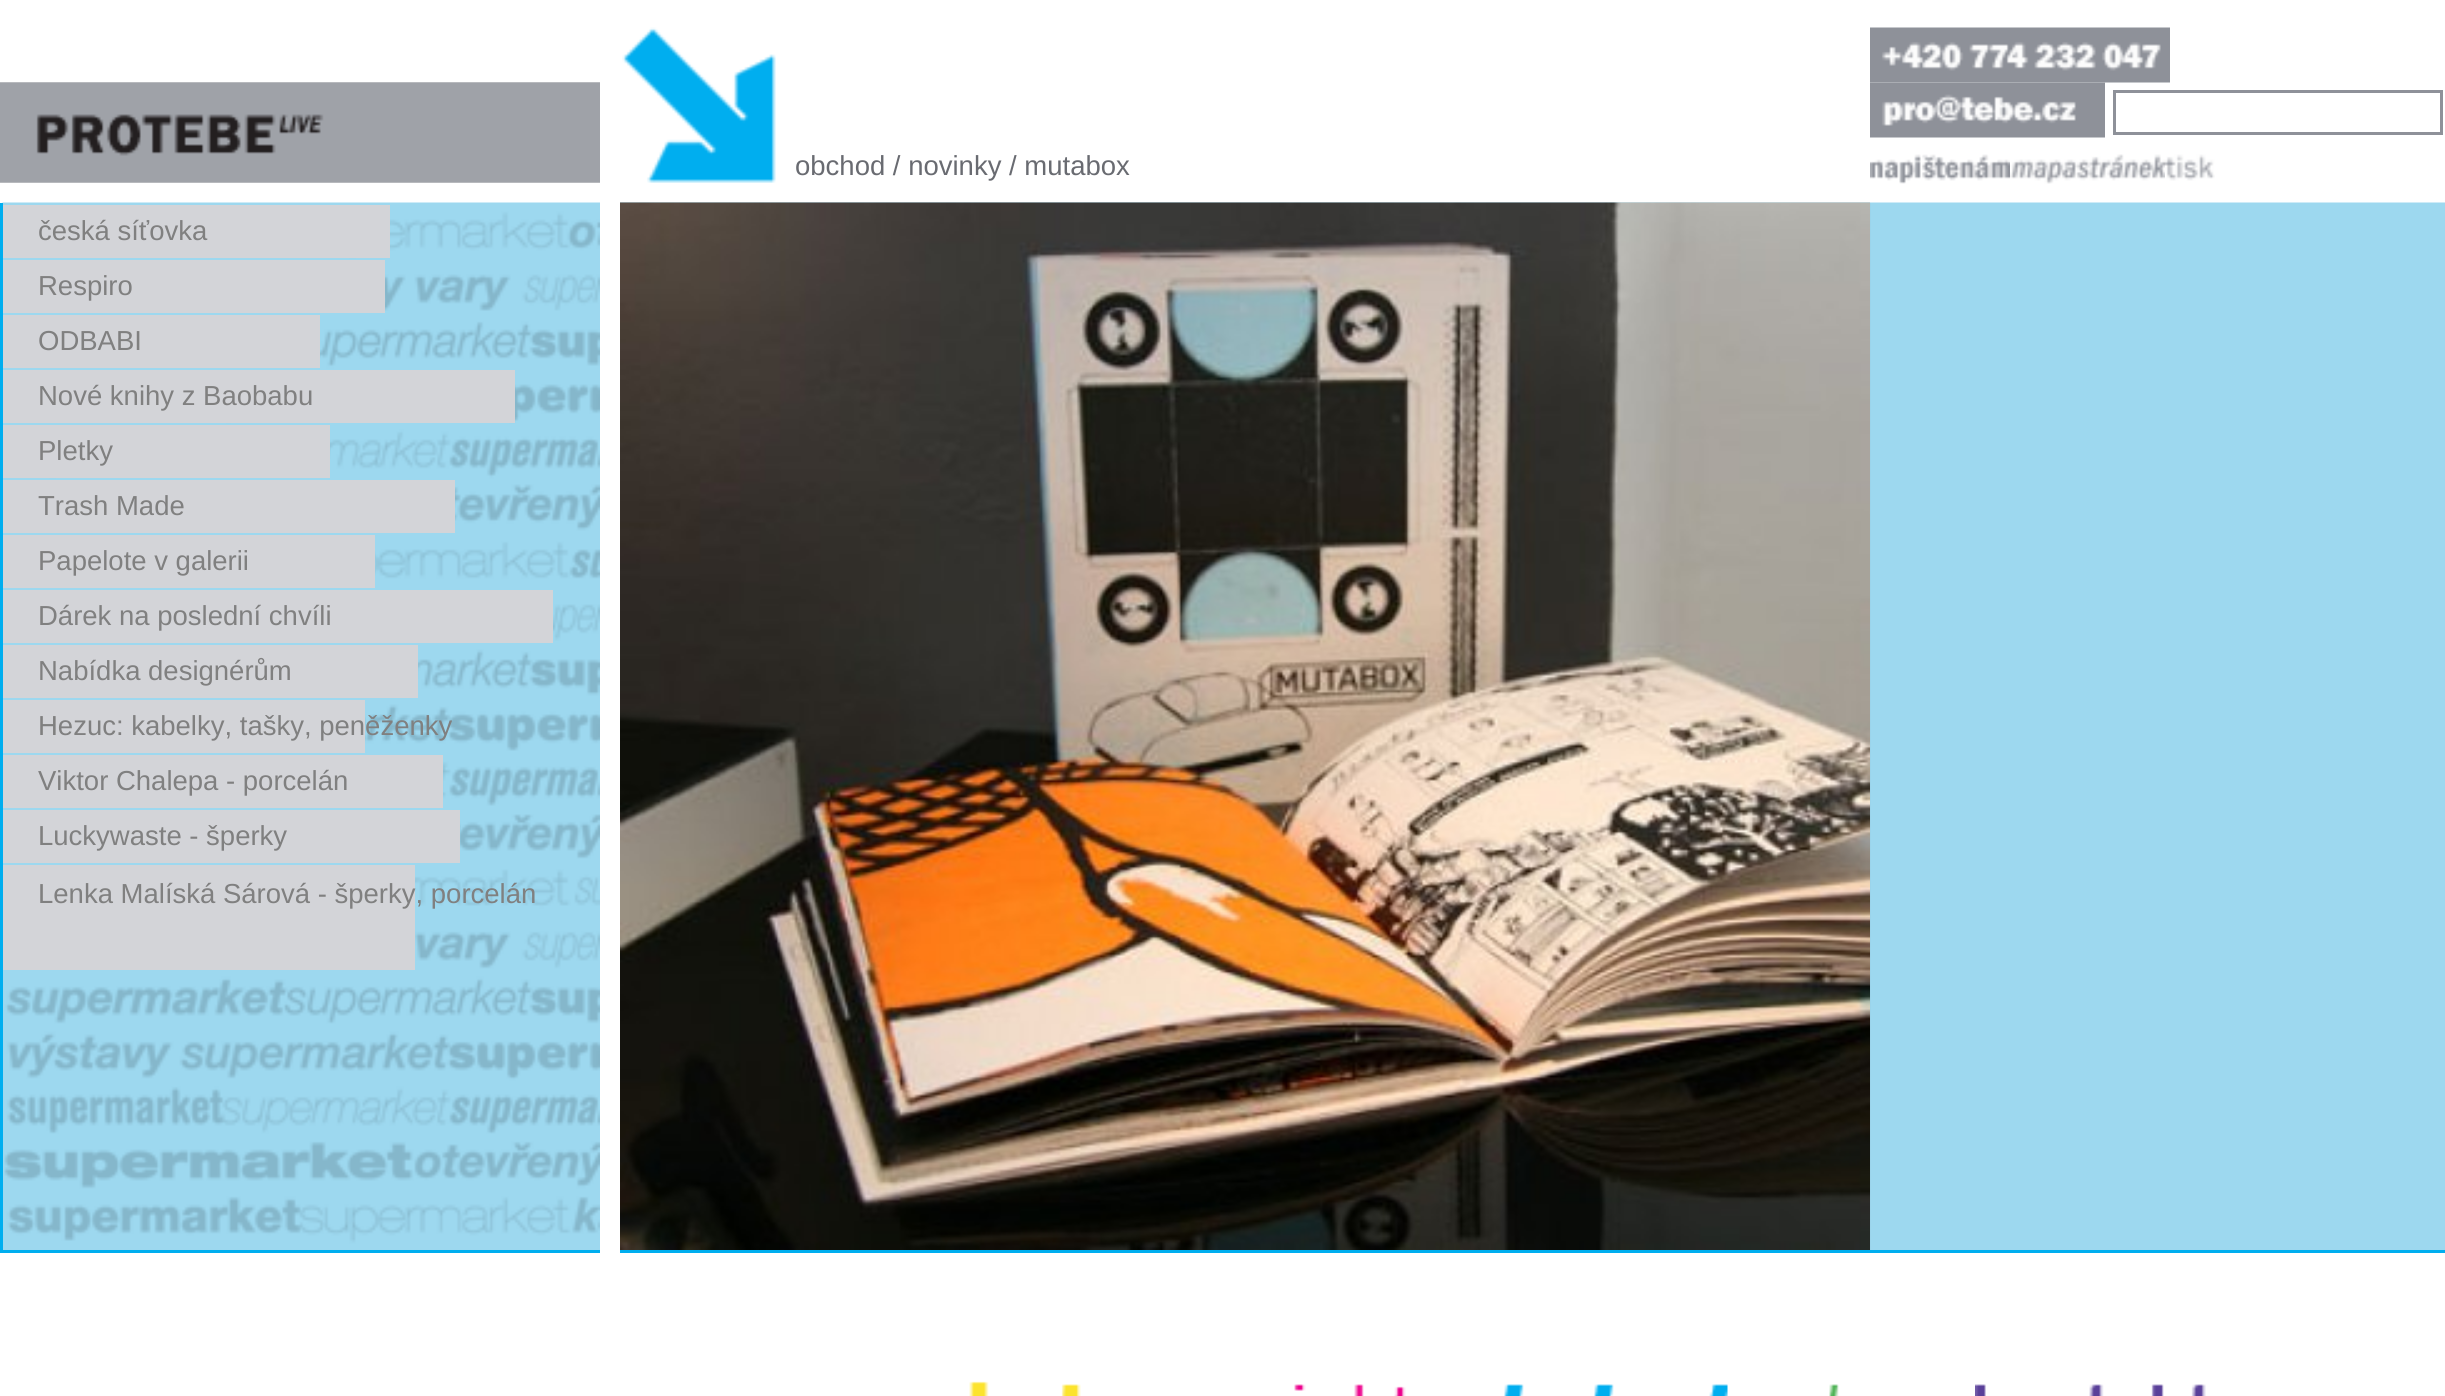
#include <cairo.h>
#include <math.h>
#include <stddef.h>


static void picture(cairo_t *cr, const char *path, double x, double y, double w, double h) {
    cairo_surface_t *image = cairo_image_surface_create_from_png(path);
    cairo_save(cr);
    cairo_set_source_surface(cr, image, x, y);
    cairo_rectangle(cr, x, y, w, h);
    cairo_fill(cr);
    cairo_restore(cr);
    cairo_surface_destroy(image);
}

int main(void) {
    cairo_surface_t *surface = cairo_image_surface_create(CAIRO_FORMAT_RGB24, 2445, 1396);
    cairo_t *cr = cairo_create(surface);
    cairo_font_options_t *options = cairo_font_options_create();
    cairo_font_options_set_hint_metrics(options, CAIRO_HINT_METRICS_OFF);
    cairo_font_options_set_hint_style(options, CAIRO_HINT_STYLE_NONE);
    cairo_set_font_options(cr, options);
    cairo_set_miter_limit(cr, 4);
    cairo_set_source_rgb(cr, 1, 1, 1);
    cairo_paint(cr);
    picture(cr, "img1.png", 622, 27, 154, 156);
    cairo_select_font_face(cr, "Liberation Sans", CAIRO_FONT_SLANT_NORMAL, CAIRO_FONT_WEIGHT_NORMAL);
    cairo_set_font_size(cr, 27.5);
    cairo_set_source_rgb(cr, 0.412, 0.42, 0.443);
    cairo_move_to(cr, 795, 175);
    cairo_show_text(cr, "obchod / novinky / mutabox");
    picture(cr, "img2.png", 1870, 27, 300, 56);
    picture(cr, "img3.png", 1870, 82, 235, 56);
    cairo_rectangle(cr, 2114.5, 91.5, 327, 42);
    cairo_set_source_rgb(cr, 0.557, 0.569, 0.6);
    cairo_set_line_width(cr, 3);
    cairo_stroke(cr);
    picture(cr, "img4.png", 1870, 154, 140, 30);
    picture(cr, "img5.png", 2010, 154, 155, 30);
    picture(cr, "img6.png", 2165, 154, 50, 27);
    picture(cr, "img7.png", 620, 202, 1825, 1048);
    cairo_set_source_rgb(cr, 0, 0.682, 0.937);
    cairo_rectangle(cr, 620, 1250, 1825, 3);
    cairo_fill(cr);
    picture(cr, "img8.png", 620, 202, 1250, 1048);
    picture(cr, "img9.png", 969, 1381, 112, 15);
    picture(cr, "img10.png", 1294, 1384, 112, 12);
    picture(cr, "img11.png", 1504, 1384, 224, 12);
    picture(cr, "img12.png", 1829, 1384, 10, 12);
    picture(cr, "img13.png", 1975, 1384, 231, 12);
    picture(cr, "img14.png", 0, 82, 600, 101);
    picture(cr, "img15.png", 0, 82, 600, 101);
    picture(cr, "img16.png", 2, 202, 598, 1048);
    cairo_rectangle(cr, 0, 1250, 600, 3);
    cairo_fill(cr);
    cairo_rectangle(cr, 0, 203, 3, 1050);
    cairo_fill(cr);
    cairo_set_source_rgb(cr, 0.827, 0.831, 0.847);
    cairo_rectangle(cr, 3, 205, 387, 53);
    cairo_fill(cr);
    cairo_set_source_rgb(cr, 0.502, 0.502, 0.502);
    cairo_move_to(cr, 38, 240);
    cairo_show_text(cr, "česká síťovka");
    cairo_set_source_rgb(cr, 0.827, 0.831, 0.847);
    cairo_rectangle(cr, 3, 260, 382, 53);
    cairo_fill(cr);
    cairo_set_source_rgb(cr, 0.502, 0.502, 0.502);
    cairo_move_to(cr, 38, 295);
    cairo_show_text(cr, "Respiro");
    cairo_set_source_rgb(cr, 0.827, 0.831, 0.847);
    cairo_rectangle(cr, 3, 315, 317, 53);
    cairo_fill(cr);
    cairo_set_source_rgb(cr, 0.502, 0.502, 0.502);
    cairo_move_to(cr, 38, 350);
    cairo_show_text(cr, "ODBABI");
    cairo_set_source_rgb(cr, 0.827, 0.831, 0.847);
    cairo_rectangle(cr, 3, 370, 512, 53);
    cairo_fill(cr);
    cairo_set_source_rgb(cr, 0.502, 0.502, 0.502);
    cairo_move_to(cr, 38, 405);
    cairo_show_text(cr, "Nové knihy z Baobabu");
    cairo_set_source_rgb(cr, 0.827, 0.831, 0.847);
    cairo_rectangle(cr, 3, 425, 327, 53);
    cairo_fill(cr);
    cairo_set_source_rgb(cr, 0.502, 0.502, 0.502);
    cairo_move_to(cr, 38, 460);
    cairo_show_text(cr, "Pletky");
    cairo_set_source_rgb(cr, 0.827, 0.831, 0.847);
    cairo_rectangle(cr, 3, 480, 452, 53);
    cairo_fill(cr);
    cairo_set_source_rgb(cr, 0.502, 0.502, 0.502);
    cairo_move_to(cr, 38, 515);
    cairo_show_text(cr, "Trash Made");
    cairo_set_source_rgb(cr, 0.827, 0.831, 0.847);
    cairo_rectangle(cr, 3, 535, 372, 53);
    cairo_fill(cr);
    cairo_set_source_rgb(cr, 0.502, 0.502, 0.502);
    cairo_move_to(cr, 38, 570);
    cairo_show_text(cr, "Papelote v galerii");
    cairo_set_source_rgb(cr, 0.827, 0.831, 0.847);
    cairo_rectangle(cr, 3, 590, 550, 53);
    cairo_fill(cr);
    cairo_set_source_rgb(cr, 0.502, 0.502, 0.502);
    cairo_move_to(cr, 38, 625);
    cairo_show_text(cr, "Dárek na poslední chvíli");
    cairo_set_source_rgb(cr, 0.827, 0.831, 0.847);
    cairo_rectangle(cr, 3, 645, 415, 53);
    cairo_fill(cr);
    cairo_set_source_rgb(cr, 0.502, 0.502, 0.502);
    cairo_move_to(cr, 38, 680);
    cairo_show_text(cr, "Nabídka designérům");
    cairo_set_source_rgb(cr, 0.827, 0.831, 0.847);
    cairo_rectangle(cr, 3, 700, 362, 53);
    cairo_fill(cr);
    cairo_set_source_rgb(cr, 0.502, 0.502, 0.502);
    cairo_move_to(cr, 38, 735);
    cairo_show_text(cr, "Hezuc: kabelky, tašky, peněženky");
    cairo_set_source_rgb(cr, 0.827, 0.831, 0.847);
    cairo_rectangle(cr, 3, 755, 440, 53);
    cairo_fill(cr);
    cairo_set_source_rgb(cr, 0.502, 0.502, 0.502);
    cairo_move_to(cr, 38, 790);
    cairo_show_text(cr, "Viktor Chalepa - porcelán");
    cairo_set_source_rgb(cr, 0.827, 0.831, 0.847);
    cairo_rectangle(cr, 3, 810, 457, 53);
    cairo_fill(cr);
    cairo_set_source_rgb(cr, 0.502, 0.502, 0.502);
    cairo_move_to(cr, 38, 845);
    cairo_show_text(cr, "Luckywaste - šperky");
    cairo_set_source_rgb(cr, 0.827, 0.831, 0.847);
    cairo_rectangle(cr, 3, 865, 412, 105);
    cairo_fill(cr);
    cairo_set_source_rgb(cr, 0.502, 0.502, 0.502);
    cairo_move_to(cr, 38, 903);
    cairo_show_text(cr, "Lenka Malíská Sárová - šperky, porcelán");
    cairo_surface_write_to_png(surface, "page.png");
    cairo_font_options_destroy(options);
    cairo_destroy(cr);
    cairo_surface_destroy(surface);
    return 0;
}
